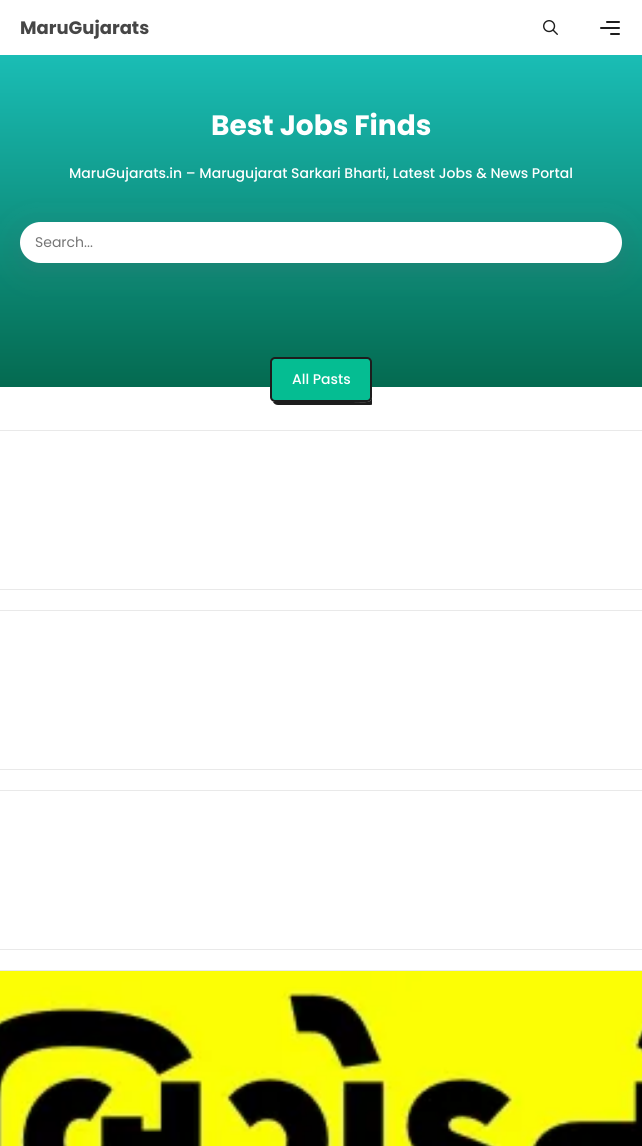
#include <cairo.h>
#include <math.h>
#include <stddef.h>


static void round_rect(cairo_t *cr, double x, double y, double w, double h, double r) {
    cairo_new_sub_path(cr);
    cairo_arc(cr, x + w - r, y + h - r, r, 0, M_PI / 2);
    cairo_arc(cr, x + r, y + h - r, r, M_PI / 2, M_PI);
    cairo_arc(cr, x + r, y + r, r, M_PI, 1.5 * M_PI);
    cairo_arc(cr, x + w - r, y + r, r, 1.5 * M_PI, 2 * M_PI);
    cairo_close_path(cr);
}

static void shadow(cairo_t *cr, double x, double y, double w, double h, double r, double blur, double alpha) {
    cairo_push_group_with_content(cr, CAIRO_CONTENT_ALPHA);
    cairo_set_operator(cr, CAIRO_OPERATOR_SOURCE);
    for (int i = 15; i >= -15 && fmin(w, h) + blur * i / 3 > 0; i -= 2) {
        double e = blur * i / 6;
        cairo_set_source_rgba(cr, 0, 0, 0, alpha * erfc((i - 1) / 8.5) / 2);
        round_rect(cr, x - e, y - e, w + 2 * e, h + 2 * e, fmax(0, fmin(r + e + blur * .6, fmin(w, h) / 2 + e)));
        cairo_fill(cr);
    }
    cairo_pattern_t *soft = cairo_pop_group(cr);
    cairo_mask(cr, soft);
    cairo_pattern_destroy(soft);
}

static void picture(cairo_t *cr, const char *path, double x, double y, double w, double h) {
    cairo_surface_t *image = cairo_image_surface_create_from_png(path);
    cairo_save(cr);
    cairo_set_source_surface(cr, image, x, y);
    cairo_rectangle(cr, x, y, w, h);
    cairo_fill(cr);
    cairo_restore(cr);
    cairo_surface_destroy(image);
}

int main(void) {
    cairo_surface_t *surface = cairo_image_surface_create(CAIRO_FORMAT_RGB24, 642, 1146);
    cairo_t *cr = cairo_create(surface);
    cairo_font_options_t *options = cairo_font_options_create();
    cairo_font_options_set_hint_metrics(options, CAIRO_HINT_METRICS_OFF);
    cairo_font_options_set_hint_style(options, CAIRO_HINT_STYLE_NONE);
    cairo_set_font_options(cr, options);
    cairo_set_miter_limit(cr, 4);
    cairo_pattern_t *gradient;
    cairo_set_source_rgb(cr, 1, 1, 1);
    cairo_paint(cr);
    cairo_select_font_face(cr, "Poppins", CAIRO_FONT_SLANT_NORMAL, CAIRO_FONT_WEIGHT_BOLD);
    cairo_set_font_size(cr, 18);
    cairo_set_source_rgb(cr, 0.275, 0.275, 0.275);
    cairo_move_to(cr, 20, 34);
    cairo_show_text(cr, "MaruGujarats");
    picture(cr, "img1.png", 543, 20, 15, 15);
    picture(cr, "img2.png", 600, 21, 20, 14);
    gradient = cairo_pattern_create_linear(321, 55, 321, 387);
    cairo_pattern_add_color_stop_rgba(gradient, 0, 0.102, 0.741, 0.71, 1);
    cairo_pattern_add_color_stop_rgba(gradient, 1, 0.016, 0.416, 0.314, 1);
    cairo_set_source(cr, gradient);
    cairo_pattern_destroy(gradient);
    cairo_rectangle(cr, 0, 55, 642, 332);
    cairo_fill(cr);
    cairo_set_font_size(cr, 28);
    cairo_set_source_rgb(cr, 1, 1, 1);
    cairo_move_to(cr, 211, 135);
    cairo_show_text(cr, "Best Jobs Finds");
    cairo_select_font_face(cr, "Poppins Medium", CAIRO_FONT_SLANT_NORMAL, CAIRO_FONT_WEIGHT_NORMAL);
    cairo_set_font_size(cr, 14);
    cairo_move_to(cr, 69, 178);
    cairo_show_text(cr, "MaruGujarats.in – Marugujarat Sarkari Bharti, Latest Jobs & News Portal");
    cairo_set_source_rgb(cr, 0.392, 0.392, 0.435);
    shadow(cr, 20, 229, 602, 41, 20.5, 14.5, 0.2);
    cairo_set_source_rgb(cr, 1, 1, 1);
    round_rect(cr, 20, 222, 602, 41, 20.5);
    cairo_fill(cr);
    cairo_select_font_face(cr, "Poppins", CAIRO_FONT_SLANT_NORMAL, CAIRO_FONT_WEIGHT_NORMAL);
    cairo_set_source_rgb(cr, 0.459, 0.459, 0.459);
    cairo_move_to(cr, 35, 247);
    cairo_show_text(cr, "Search...");
    cairo_save(cr);
    cairo_rectangle(cr, 270, 357, 102, 53);
    cairo_clip(cr);
    cairo_set_source_rgb(cr, 0.114, 0.114, 0.114);
    cairo_new_path(cr);
    cairo_move_to(cr, 273, 402);
    cairo_curve_to(cr, 274, 404, 276, 405, 278, 405);
    cairo_line_to(cr, 370, 405);
    cairo_curve_to(cr, 373, 405, 375, 403, 375, 400);
    cairo_line_to(cr, 375, 365);
    cairo_curve_to(cr, 375, 363, 374, 361, 372, 360);
    cairo_line_to(cr, 372, 385);
    cairo_curve_to(cr, 372, 405, 373, 402, 352, 402);
    cairo_close_path(cr);
    cairo_fill(cr);
    cairo_restore(cr);
    cairo_set_source_rgb(cr, 0.02, 0.741, 0.573);
    round_rect(cr, 271, 358, 100, 43, 4);
    cairo_fill_preserve(cr);
    cairo_set_source_rgb(cr, 0.114, 0.114, 0.114);
    cairo_stroke(cr);
    cairo_select_font_face(cr, "Poppins Medium", CAIRO_FONT_SLANT_NORMAL, CAIRO_FONT_WEIGHT_NORMAL);
    cairo_set_source_rgb(cr, 1, 1, 1);
    cairo_move_to(cr, 292, 384);
    cairo_show_text(cr, "All Pasts");
    cairo_rectangle(cr, -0.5, 430.5, 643, 159);
    cairo_set_source_rgb(cr, 0.914, 0.914, 0.914);
    cairo_set_line_width(cr, 1);
    cairo_stroke(cr);
    cairo_rectangle(cr, -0.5, 610.5, 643, 159);
    cairo_stroke(cr);
    cairo_rectangle(cr, -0.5, 790.5, 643, 159);
    cairo_stroke(cr);
    cairo_rectangle(cr, -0.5, 970.5, 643, 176);
    cairo_stroke(cr);
    picture(cr, "img3.png", 0, 971, 642, 175);
    cairo_surface_write_to_png(surface, "page.png");
    cairo_font_options_destroy(options);
    cairo_destroy(cr);
    cairo_surface_destroy(surface);
    return 0;
}
